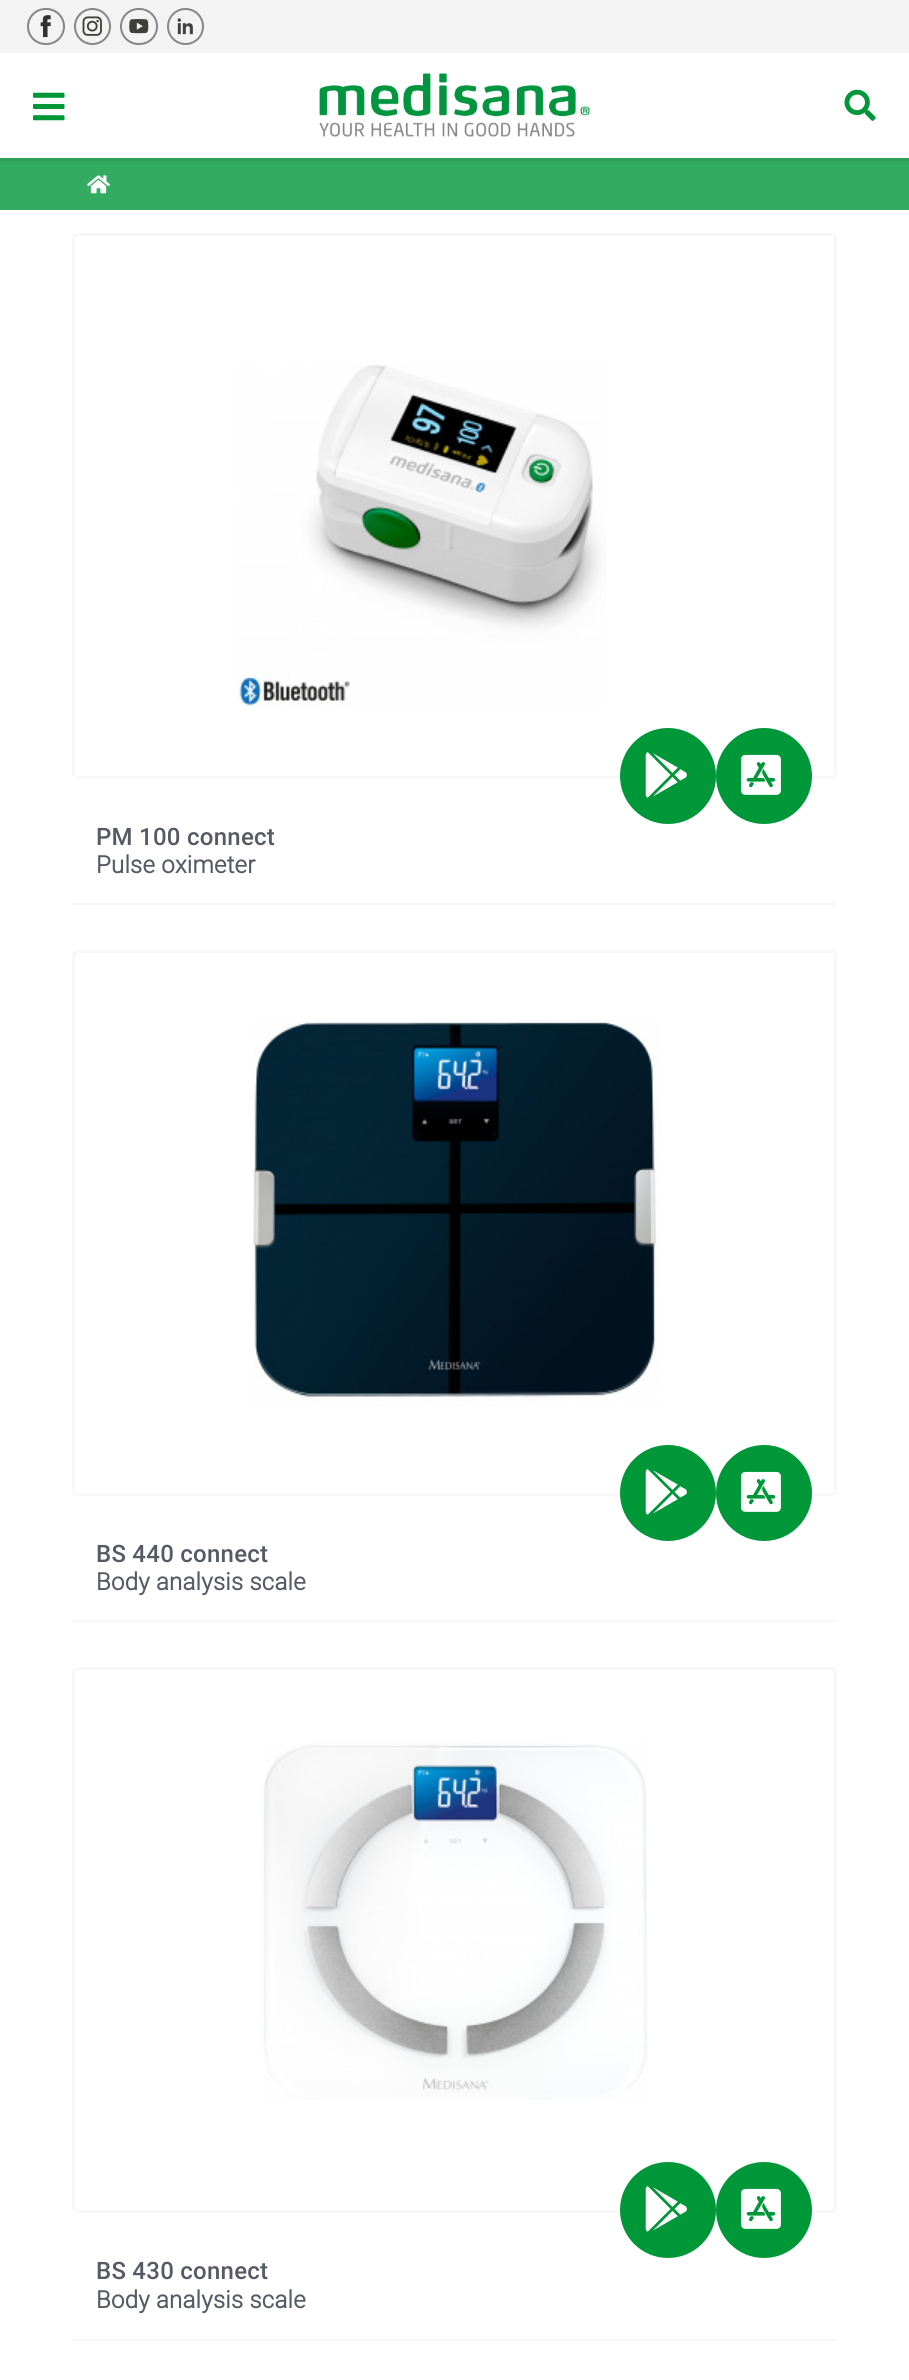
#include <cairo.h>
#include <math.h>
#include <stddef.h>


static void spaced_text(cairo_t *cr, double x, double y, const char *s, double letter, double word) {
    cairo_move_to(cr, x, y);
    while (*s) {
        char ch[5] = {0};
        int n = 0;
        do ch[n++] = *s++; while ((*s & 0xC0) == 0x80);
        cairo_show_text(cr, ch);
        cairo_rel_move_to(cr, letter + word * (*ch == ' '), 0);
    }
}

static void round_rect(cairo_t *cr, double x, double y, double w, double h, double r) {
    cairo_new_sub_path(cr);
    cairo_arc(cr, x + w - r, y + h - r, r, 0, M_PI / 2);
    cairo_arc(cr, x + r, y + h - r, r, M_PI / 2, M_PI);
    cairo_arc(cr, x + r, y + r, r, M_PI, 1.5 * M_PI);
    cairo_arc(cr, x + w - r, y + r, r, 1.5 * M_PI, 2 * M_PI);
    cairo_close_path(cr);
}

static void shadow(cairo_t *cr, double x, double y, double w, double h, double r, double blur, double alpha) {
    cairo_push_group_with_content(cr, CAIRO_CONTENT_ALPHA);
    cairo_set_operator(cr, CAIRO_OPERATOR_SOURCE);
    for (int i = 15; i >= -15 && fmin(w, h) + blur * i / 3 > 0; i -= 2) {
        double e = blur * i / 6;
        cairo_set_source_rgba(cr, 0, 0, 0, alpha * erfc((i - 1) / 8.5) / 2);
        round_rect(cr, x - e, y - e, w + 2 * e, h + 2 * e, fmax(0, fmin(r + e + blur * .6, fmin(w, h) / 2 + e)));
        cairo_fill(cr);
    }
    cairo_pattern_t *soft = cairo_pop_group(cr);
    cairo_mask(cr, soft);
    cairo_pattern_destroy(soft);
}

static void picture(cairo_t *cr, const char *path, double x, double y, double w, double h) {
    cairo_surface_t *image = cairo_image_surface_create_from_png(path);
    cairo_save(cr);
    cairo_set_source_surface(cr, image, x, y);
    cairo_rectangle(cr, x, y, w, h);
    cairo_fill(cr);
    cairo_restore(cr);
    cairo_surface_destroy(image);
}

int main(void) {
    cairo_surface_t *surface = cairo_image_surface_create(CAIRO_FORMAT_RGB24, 909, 2380);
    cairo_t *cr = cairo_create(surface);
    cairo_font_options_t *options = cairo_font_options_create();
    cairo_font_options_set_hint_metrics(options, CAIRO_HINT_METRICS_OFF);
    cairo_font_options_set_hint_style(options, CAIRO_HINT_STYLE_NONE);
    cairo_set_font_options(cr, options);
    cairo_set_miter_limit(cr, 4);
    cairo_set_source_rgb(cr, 1, 1, 1);
    cairo_paint(cr);
    cairo_set_source_rgb(cr, 0.2, 0.675, 0.38);
    cairo_rectangle(cr, 0, 158, 909, 52);
    cairo_fill(cr);
    picture(cr, "img8.png", 87, 175, 23, 19);
    cairo_set_source_rgb(cr, 0, 0, 0);
    shadow(cr, 0, 0, 909, 158, 0, 6, 0.1);
    cairo_set_source_rgba(cr, 0, 0, 0, 0.05);
    cairo_rectangle(cr, 0, 158, 909, 3);
    cairo_fill(cr);
    cairo_set_source_rgb(cr, 1, 1, 1);
    cairo_rectangle(cr, 0, 53, 909, 105);
    cairo_fill(cr);
    cairo_set_source_rgb(cr, 0.953, 0.953, 0.953);
    cairo_rectangle(cr, 0, 0, 909, 53);
    cairo_fill(cr);
    round_rect(cr, 28, 9, 36, 35, 17.5);
    cairo_set_source_rgb(cr, 0.525, 0.525, 0.525);
    cairo_stroke(cr);
    picture(cr, "img1.png", 40, 15, 11, 23);
    cairo_arc(cr, 92.5, 26.5, 17.5, 0, 2 * M_PI);
    cairo_stroke(cr);
    picture(cr, "img2.png", 82, 16, 20, 20);
    round_rect(cr, 121, 9, 36, 35, 17.5);
    cairo_stroke(cr);
    picture(cr, "img3.png", 129, 19, 20, 15);
    cairo_arc(cr, 185.5, 26.5, 17.5, 0, 2 * M_PI);
    cairo_stroke(cr);
    picture(cr, "img4.png", 177, 18, 16, 17);
    picture(cr, "img5.png", 33, 92, 32, 29);
    picture(cr, "img6.png", 319, 73, 271, 64);
    picture(cr, "img7.png", 844, 89, 32, 32);
    round_rect(cr, 73.5, 234.5, 762, 543, 4.5);
    cairo_set_source_rgb(cr, 0.969, 0.969, 0.969);
    cairo_set_line_width(cr, 3);
    cairo_stroke(cr);
    picture(cr, "img9.png", 237, 364, 370, 345);
    cairo_set_source_rgb(cr, 0, 0.592, 0.224);
    cairo_arc(cr, 668, 776, 48, 0, 2 * M_PI);
    cairo_fill(cr);
    picture(cr, "img10.png", 645, 752, 42, 46);
    cairo_arc(cr, 764, 776, 48, 0, 2 * M_PI);
    cairo_fill(cr);
    picture(cr, "img11.png", 741, 754, 40, 41);
    cairo_set_source_rgb(cr, 0.969, 0.969, 0.969);
    cairo_rectangle(cr, 72, 903, 765, 2);
    cairo_fill(cr);
    cairo_select_font_face(cr, "Roboto Medium", CAIRO_FONT_SLANT_NORMAL, CAIRO_FONT_WEIGHT_NORMAL);
    cairo_set_font_size(cr, 24);
    cairo_set_source_rgb(cr, 0.333, 0.353, 0.392);
    spaced_text(cr, 96, 845, "PM 100 connect", 0.25, 0);
    cairo_select_font_face(cr, "Roboto", CAIRO_FONT_SLANT_NORMAL, CAIRO_FONT_WEIGHT_BOLD);
    spaced_text(cr, 96, 873, "Pulse oximeter", 0.25, 0);
    round_rect(cr, 73.5, 951.5, 762, 543, 4.5);
    cairo_set_source_rgb(cr, 0.969, 0.969, 0.969);
    cairo_stroke(cr);
    picture(cr, "img12.png", 253, 1022, 408, 385);
    cairo_set_source_rgb(cr, 0, 0.592, 0.224);
    cairo_arc(cr, 668, 1493, 48, 0, 2 * M_PI);
    cairo_fill(cr);
    picture(cr, "img10.png", 645, 1469, 42, 46);
    cairo_arc(cr, 764, 1493, 48, 0, 2 * M_PI);
    cairo_fill(cr);
    picture(cr, "img11.png", 741, 1471, 40, 41);
    cairo_set_source_rgb(cr, 0.969, 0.969, 0.969);
    cairo_rectangle(cr, 72, 1620, 765, 2);
    cairo_fill(cr);
    cairo_select_font_face(cr, "Roboto Medium", CAIRO_FONT_SLANT_NORMAL, CAIRO_FONT_WEIGHT_NORMAL);
    cairo_set_source_rgb(cr, 0.333, 0.353, 0.392);
    spaced_text(cr, 96, 1562, "BS 440 connect", 0.25, 0);
    cairo_select_font_face(cr, "Roboto", CAIRO_FONT_SLANT_NORMAL, CAIRO_FONT_WEIGHT_BOLD);
    spaced_text(cr, 96, 1590, "Body analysis scale", 0.25, 0);
    round_rect(cr, 73.5, 1668.5, 762, 543, 4.5);
    cairo_set_source_rgb(cr, 0.969, 0.969, 0.969);
    cairo_stroke(cr);
    picture(cr, "img13.png", 263, 1743, 385, 357);
    cairo_set_source_rgb(cr, 0, 0.592, 0.224);
    cairo_arc(cr, 668, 2210, 48, 0, 2 * M_PI);
    cairo_fill(cr);
    picture(cr, "img10.png", 645, 2186, 42, 46);
    cairo_arc(cr, 764, 2210, 48, 0, 2 * M_PI);
    cairo_fill(cr);
    picture(cr, "img11.png", 741, 2188, 40, 41);
    cairo_set_source_rgb(cr, 0.969, 0.969, 0.969);
    cairo_rectangle(cr, 72, 2339, 765, 2);
    cairo_fill(cr);
    cairo_select_font_face(cr, "Roboto Medium", CAIRO_FONT_SLANT_NORMAL, CAIRO_FONT_WEIGHT_NORMAL);
    cairo_set_source_rgb(cr, 0.333, 0.353, 0.392);
    spaced_text(cr, 96, 2279, "BS 430 connect", 0.25, 0);
    cairo_select_font_face(cr, "Roboto", CAIRO_FONT_SLANT_NORMAL, CAIRO_FONT_WEIGHT_BOLD);
    spaced_text(cr, 96, 2308, "Body analysis scale", 0.25, 0);
    cairo_surface_write_to_png(surface, "page.png");
    cairo_font_options_destroy(options);
    cairo_destroy(cr);
    cairo_surface_destroy(surface);
    return 0;
}
